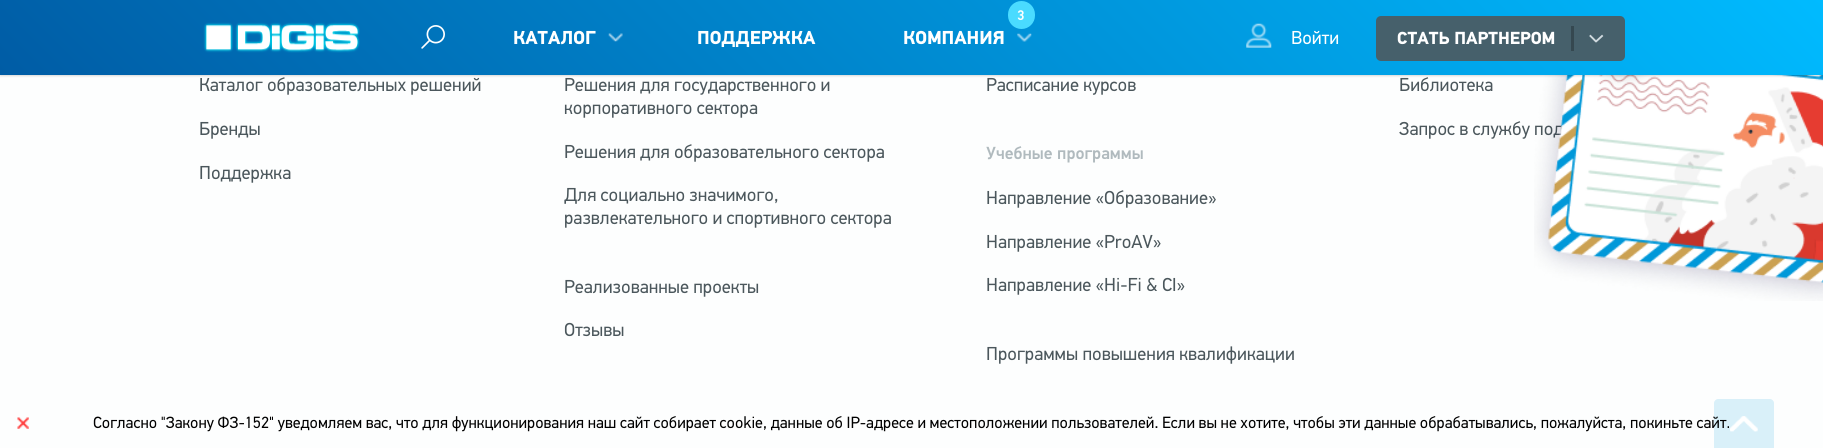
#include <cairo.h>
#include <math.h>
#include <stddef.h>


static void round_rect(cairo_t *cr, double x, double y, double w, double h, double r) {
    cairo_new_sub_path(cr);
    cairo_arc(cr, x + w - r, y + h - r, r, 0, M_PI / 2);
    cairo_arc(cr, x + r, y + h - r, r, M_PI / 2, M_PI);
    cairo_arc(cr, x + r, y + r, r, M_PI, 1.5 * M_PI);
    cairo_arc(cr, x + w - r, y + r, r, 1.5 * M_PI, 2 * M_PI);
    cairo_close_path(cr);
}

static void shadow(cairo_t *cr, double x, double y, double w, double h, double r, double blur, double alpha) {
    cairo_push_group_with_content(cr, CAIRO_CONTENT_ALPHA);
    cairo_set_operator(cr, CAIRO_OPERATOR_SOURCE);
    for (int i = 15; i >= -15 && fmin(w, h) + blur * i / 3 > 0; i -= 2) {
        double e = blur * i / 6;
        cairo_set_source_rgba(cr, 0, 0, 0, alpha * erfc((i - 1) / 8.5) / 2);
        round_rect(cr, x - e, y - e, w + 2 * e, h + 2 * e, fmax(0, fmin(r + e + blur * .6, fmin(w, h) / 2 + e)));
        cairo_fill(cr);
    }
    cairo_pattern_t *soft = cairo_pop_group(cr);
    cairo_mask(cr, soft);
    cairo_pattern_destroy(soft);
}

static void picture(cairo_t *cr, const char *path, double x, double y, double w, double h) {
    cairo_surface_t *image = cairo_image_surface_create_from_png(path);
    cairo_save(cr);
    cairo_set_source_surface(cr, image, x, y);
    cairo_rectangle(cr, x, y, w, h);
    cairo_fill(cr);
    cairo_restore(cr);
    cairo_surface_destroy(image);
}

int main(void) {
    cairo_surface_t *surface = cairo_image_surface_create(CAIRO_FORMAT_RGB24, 1823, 448);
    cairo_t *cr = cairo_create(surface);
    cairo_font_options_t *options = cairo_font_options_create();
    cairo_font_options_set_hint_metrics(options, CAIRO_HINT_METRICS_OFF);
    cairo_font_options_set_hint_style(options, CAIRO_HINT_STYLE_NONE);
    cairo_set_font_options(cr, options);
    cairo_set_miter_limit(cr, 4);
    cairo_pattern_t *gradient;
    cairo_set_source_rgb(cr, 0.992, 0.996, 0.996);
    cairo_paint(cr);
    cairo_select_font_face(cr, "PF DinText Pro", CAIRO_FONT_SLANT_NORMAL, CAIRO_FONT_WEIGHT_NORMAL);
    cairo_set_font_size(cr, 18.75);
    cairo_set_source_rgb(cr, 0.294, 0.341, 0.361);
    cairo_move_to(cr, 1399, 135);
    cairo_show_text(cr, "Запрос в службу под");
    picture(cr, "img6.png", 1534, 75, 289, 226);
    cairo_set_source_rgb(cr, 0, 0, 0);
    shadow(cr, 0, 1, 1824, 75, 0, 1, 0.15);
    gradient = cairo_pattern_create_linear(437, 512, 1387, -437);
    cairo_pattern_add_color_stop_rgba(gradient, 0, 0, 0.361, 0.647, 1);
    cairo_pattern_add_color_stop_rgba(gradient, 1, 0, 0.733, 1, 1);
    cairo_set_source(cr, gradient);
    cairo_pattern_destroy(gradient);
    cairo_rectangle(cr, 0, 0, 1823, 75);
    cairo_fill(cr);
    picture(cr, "img1.png", 203, 22, 157, 31);
    picture(cr, "img2.png", 421, 25, 24, 24);
    cairo_select_font_face(cr, "PF DinText Pro", CAIRO_FONT_SLANT_NORMAL, CAIRO_FONT_WEIGHT_BOLD);
    cairo_set_source_rgb(cr, 1, 1, 1);
    cairo_move_to(cr, 513, 44);
    cairo_show_text(cr, "КАТАЛОГ");
    picture(cr, "img3.png", 608, 33, 15, 9);
    cairo_move_to(cr, 697, 44);
    cairo_show_text(cr, "ПОДДЕРЖКА");
    cairo_set_source_rgb(cr, 0.29, 0.859, 1);
    round_rect(cr, 1008, 1, 27, 28, 13.5);
    cairo_fill(cr);
    cairo_select_font_face(cr, "PF DinText Pro Medium", CAIRO_FONT_SLANT_NORMAL, CAIRO_FONT_WEIGHT_NORMAL);
    cairo_set_font_size(cr, 14);
    cairo_set_source_rgb(cr, 1, 1, 1);
    cairo_move_to(cr, 1017, 20);
    cairo_show_text(cr, "3");
    cairo_select_font_face(cr, "PF DinText Pro", CAIRO_FONT_SLANT_NORMAL, CAIRO_FONT_WEIGHT_BOLD);
    cairo_set_font_size(cr, 18.75);
    cairo_move_to(cr, 903, 44);
    cairo_show_text(cr, "КОМПАНИЯ");
    picture(cr, "img4.png", 1017, 33, 15, 9);
    picture(cr, "img5.png", 1246, 23, 26, 25);
    cairo_select_font_face(cr, "PF DinText Pro", CAIRO_FONT_SLANT_NORMAL, CAIRO_FONT_WEIGHT_NORMAL);
    cairo_move_to(cr, 1291, 44);
    cairo_show_text(cr, "Войти");
    cairo_set_source_rgb(cr, 0.275, 0.376, 0.42);
    round_rect(cr, 1376, 16, 249, 45, 5);
    cairo_fill(cr);
    cairo_select_font_face(cr, "PF DinText Pro", CAIRO_FONT_SLANT_NORMAL, CAIRO_FONT_WEIGHT_BOLD);
    cairo_set_font_size(cr, 17.5);
    cairo_set_source_rgb(cr, 1, 1, 1);
    cairo_move_to(cr, 1397, 44);
    cairo_show_text(cr, "СТАТЬ ПАРТНЕРОМ");
    cairo_set_source_rgb(cr, 0.208, 0.282, 0.314);
    cairo_rectangle(cr, 1571, 26, 3, 25);
    cairo_fill(cr);
    cairo_new_path(cr);
    cairo_move_to(cr, 1590.5, 36);
    cairo_line_to(cr, 1596, 41.5);
    cairo_line_to(cr, 1602, 36);
    cairo_set_source_rgb(cr, 0.816, 0.855, 0.875);
    cairo_set_line_width(cr, 1.9);
    cairo_set_line_cap(cr, CAIRO_LINE_CAP_SQUARE);
    cairo_set_line_join(cr, CAIRO_LINE_JOIN_ROUND);
    cairo_stroke(cr);
    cairo_select_font_face(cr, "PF DinText Pro", CAIRO_FONT_SLANT_NORMAL, CAIRO_FONT_WEIGHT_NORMAL);
    cairo_set_font_size(cr, 18.75);
    cairo_set_source_rgb(cr, 0.294, 0.341, 0.361);
    cairo_move_to(cr, 199, 91);
    cairo_show_text(cr, "Каталог образовательных решений");
    cairo_move_to(cr, 199, 135);
    cairo_show_text(cr, "Бренды");
    cairo_move_to(cr, 199, 179);
    cairo_show_text(cr, "Поддержка");
    cairo_move_to(cr, 564, 91);
    cairo_show_text(cr, "Решения для государственного и");
    cairo_move_to(cr, 564, 114);
    cairo_show_text(cr, "корпоративного сектора");
    cairo_move_to(cr, 564, 158);
    cairo_show_text(cr, "Решения для образовательного сектора");
    cairo_move_to(cr, 564, 201);
    cairo_show_text(cr, "Для социально значимого,");
    cairo_move_to(cr, 564, 224);
    cairo_show_text(cr, "развлекательного и спортивного сектора");
    cairo_move_to(cr, 564, 293);
    cairo_show_text(cr, "Реализованные проекты");
    cairo_move_to(cr, 564, 336);
    cairo_show_text(cr, "Отзывы");
    cairo_move_to(cr, 986, 91);
    cairo_show_text(cr, "Расписание курсов");
    cairo_select_font_face(cr, "PF DinText Pro Medium", CAIRO_FONT_SLANT_NORMAL, CAIRO_FONT_WEIGHT_NORMAL);
    cairo_set_font_size(cr, 17.5);
    cairo_set_source_rgb(cr, 0.69, 0.729, 0.745);
    cairo_move_to(cr, 986, 159);
    cairo_show_text(cr, "Учебные программы");
    cairo_select_font_face(cr, "PF DinText Pro", CAIRO_FONT_SLANT_NORMAL, CAIRO_FONT_WEIGHT_NORMAL);
    cairo_set_font_size(cr, 18.75);
    cairo_set_source_rgb(cr, 0.294, 0.341, 0.361);
    cairo_move_to(cr, 986, 204);
    cairo_show_text(cr, "Направление «Образование»");
    cairo_move_to(cr, 986, 248);
    cairo_show_text(cr, "Направление «ProAV»");
    cairo_move_to(cr, 986, 291);
    cairo_show_text(cr, "Направление «Hi-Fi & CI»");
    cairo_move_to(cr, 986, 360);
    cairo_show_text(cr, "Программы повышения квалификации");
    cairo_move_to(cr, 1399, 91);
    cairo_show_text(cr, "Библиотека");
    picture(cr, "img7.png", 17, 417, 12, 12);
    cairo_set_source_rgb(cr, 0.851, 0.941, 0.976);
    cairo_new_path(cr);
    cairo_move_to(cr, 1718, 399);
    cairo_line_to(cr, 1770, 399);
    cairo_curve_to(cr, 1772, 399, 1774, 401, 1774, 403);
    cairo_line_to(cr, 1774, 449);
    cairo_line_to(cr, 1714, 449);
    cairo_line_to(cr, 1714, 403);
    cairo_curve_to(cr, 1714, 401, 1716, 399, 1718, 399);
    cairo_close_path(cr);
    cairo_fill(cr);
    cairo_set_font_size(cr, 16.25);
    cairo_set_source_rgb(cr, 0, 0, 0);
    cairo_move_to(cr, 93, 428);
    cairo_show_text(cr, "Согласно \"Закону ФЗ-152\" уведомляем вас, что для функционирования наш сайт собирает cookie, данные об IP-адресе и местоположении пользователей. Если вы не хотите, чтобы эти данные обрабатывались, пожалуйста, покиньте сайт.");
    picture(cr, "img8.png", 1730, 416, 28, 16);
    picture(cr, "img9.png", 1730, 416, 28, 16);
    cairo_surface_write_to_png(surface, "page.png");
    cairo_font_options_destroy(options);
    cairo_destroy(cr);
    cairo_surface_destroy(surface);
    return 0;
}
